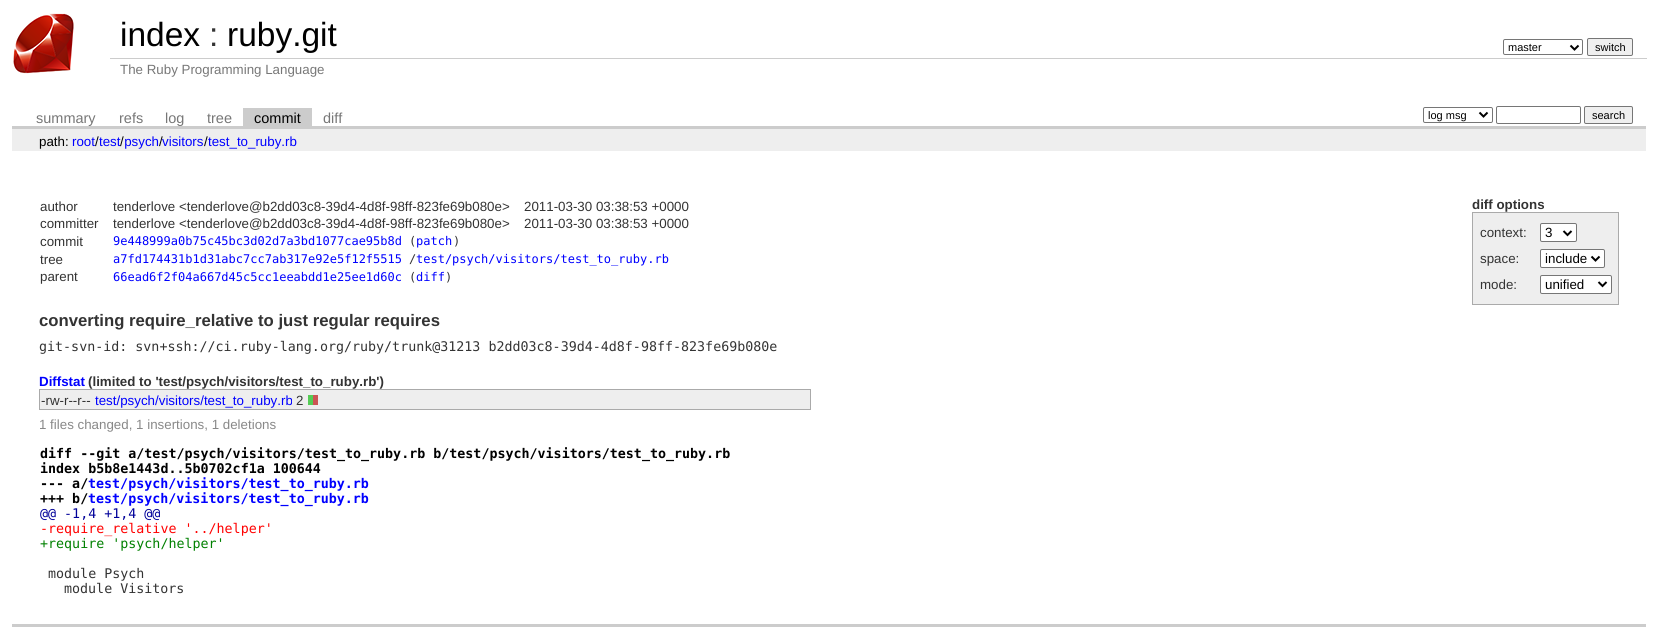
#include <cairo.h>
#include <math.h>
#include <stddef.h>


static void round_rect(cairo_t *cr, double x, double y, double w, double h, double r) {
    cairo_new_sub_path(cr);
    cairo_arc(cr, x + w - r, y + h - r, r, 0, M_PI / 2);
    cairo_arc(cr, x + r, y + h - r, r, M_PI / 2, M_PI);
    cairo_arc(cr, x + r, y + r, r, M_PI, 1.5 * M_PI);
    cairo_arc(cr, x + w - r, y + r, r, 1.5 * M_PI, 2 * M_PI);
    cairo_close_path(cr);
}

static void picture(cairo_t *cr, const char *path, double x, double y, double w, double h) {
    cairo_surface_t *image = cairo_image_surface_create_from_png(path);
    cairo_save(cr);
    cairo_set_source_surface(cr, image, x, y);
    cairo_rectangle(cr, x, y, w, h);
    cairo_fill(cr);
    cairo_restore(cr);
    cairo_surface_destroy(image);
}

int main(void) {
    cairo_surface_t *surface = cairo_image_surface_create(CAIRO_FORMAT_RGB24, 1658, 633);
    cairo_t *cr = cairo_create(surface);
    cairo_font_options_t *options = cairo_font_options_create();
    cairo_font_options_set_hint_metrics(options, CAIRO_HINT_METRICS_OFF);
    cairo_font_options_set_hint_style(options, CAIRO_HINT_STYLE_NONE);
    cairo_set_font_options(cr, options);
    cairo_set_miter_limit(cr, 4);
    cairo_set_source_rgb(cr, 1, 1, 1);
    cairo_paint(cr);
    picture(cr, "img1.png", 13, 13, 61, 61);
    cairo_select_font_face(cr, "Liberation Sans", CAIRO_FONT_SLANT_NORMAL, CAIRO_FONT_WEIGHT_NORMAL);
    cairo_set_font_size(cr, 33.5);
    cairo_set_source_rgb(cr, 0, 0, 0);
    cairo_move_to(cr, 120, 46);
    cairo_show_text(cr, "index");
    cairo_set_source_rgb(cr, 0.2, 0.2, 0.2);
    cairo_move_to(cr, 209, 46);
    cairo_show_text(cr, ":");
    cairo_set_source_rgb(cr, 0, 0, 0);
    cairo_move_to(cr, 227, 46);
    cairo_show_text(cr, "ruby.git");
    round_rect(cr, 1503.5, 39.5, 79, 15, 1.5);
    cairo_set_source_rgb(cr, 0.463, 0.463, 0.463);
    cairo_set_line_width(cr, 1);
    cairo_stroke(cr);
    cairo_new_path(cr);
    cairo_move_to(cr, 1570.5, 45.5);
    cairo_line_to(cr, 1574.5, 49.5);
    cairo_line_to(cr, 1578.5, 45.5);
    cairo_set_source_rgb(cr, 0, 0, 0);
    cairo_set_line_width(cr, 2);
    cairo_stroke(cr);
    cairo_set_font_size(cr, 11);
    cairo_move_to(cr, 1508, 51);
    cairo_show_text(cr, "master");
    cairo_set_source_rgb(cr, 0.937, 0.937, 0.937);
    round_rect(cr, 1587.5, 38.5, 45, 17, 1.5);
    cairo_fill_preserve(cr);
    cairo_set_source_rgb(cr, 0.463, 0.463, 0.463);
    cairo_set_line_width(cr, 1);
    cairo_stroke(cr);
    cairo_set_source_rgb(cr, 0, 0, 0);
    cairo_move_to(cr, 1595, 51);
    cairo_show_text(cr, "switch");
    cairo_set_source_rgb(cr, 0.8, 0.8, 0.8);
    cairo_rectangle(cr, 110, 58, 1537, 1);
    cairo_fill(cr);
    cairo_set_font_size(cr, 13.33);
    cairo_set_source_rgb(cr, 0.467, 0.467, 0.467);
    cairo_move_to(cr, 120, 74);
    cairo_show_text(cr, "The Ruby Programming Language");
    cairo_set_source_rgb(cr, 0.8, 0.8, 0.8);
    cairo_rectangle(cr, 12, 126, 1634, 3);
    cairo_fill(cr);
    cairo_set_font_size(cr, 14.5);
    cairo_set_source_rgb(cr, 0.467, 0.467, 0.467);
    cairo_move_to(cr, 36, 123);
    cairo_show_text(cr, "summary");
    cairo_move_to(cr, 119, 123);
    cairo_show_text(cr, "refs");
    cairo_move_to(cr, 165, 123);
    cairo_show_text(cr, "log");
    cairo_move_to(cr, 207, 123);
    cairo_show_text(cr, "tree");
    cairo_set_source_rgb(cr, 0.8, 0.8, 0.8);
    cairo_rectangle(cr, 243, 108, 69, 18);
    cairo_fill(cr);
    cairo_set_source_rgb(cr, 0, 0, 0);
    cairo_move_to(cr, 254, 123);
    cairo_show_text(cr, "commit");
    cairo_set_source_rgb(cr, 0.467, 0.467, 0.467);
    cairo_move_to(cr, 323, 123);
    cairo_show_text(cr, "diff");
    round_rect(cr, 1423.5, 107.5, 69, 15, 1.5);
    cairo_set_source_rgb(cr, 0.463, 0.463, 0.463);
    cairo_stroke(cr);
    cairo_new_path(cr);
    cairo_move_to(cr, 1479.5, 112.5);
    cairo_line_to(cr, 1483.5, 116.5);
    cairo_line_to(cr, 1487.5, 112.5);
    cairo_set_source_rgb(cr, 0, 0, 0);
    cairo_set_line_width(cr, 2);
    cairo_stroke(cr);
    cairo_set_font_size(cr, 11);
    cairo_move_to(cr, 1428, 119);
    cairo_show_text(cr, "log msg");
    round_rect(cr, 1496.5, 106.5, 84, 17, 1.5);
    cairo_set_source_rgb(cr, 0.463, 0.463, 0.463);
    cairo_set_line_width(cr, 1);
    cairo_stroke(cr);
    cairo_set_source_rgb(cr, 0.937, 0.937, 0.937);
    round_rect(cr, 1584.5, 106.5, 48, 17, 1.5);
    cairo_fill_preserve(cr);
    cairo_set_source_rgb(cr, 0.463, 0.463, 0.463);
    cairo_stroke(cr);
    cairo_set_source_rgb(cr, 0, 0, 0);
    cairo_move_to(cr, 1592, 119);
    cairo_show_text(cr, "search");
    cairo_set_source_rgb(cr, 0.933, 0.933, 0.933);
    cairo_rectangle(cr, 12, 129, 1634, 22);
    cairo_fill(cr);
    cairo_set_font_size(cr, 13.33);
    cairo_set_source_rgb(cr, 0, 0, 0);
    cairo_move_to(cr, 39, 146);
    cairo_show_text(cr, "path:");
    cairo_move_to(cr, 95, 146);
    cairo_show_text(cr, "/");
    cairo_set_source_rgb(cr, 0, 0, 1);
    cairo_move_to(cr, 99, 146);
    cairo_show_text(cr, "test psych");
    cairo_move_to(cr, 72, 146);
    cairo_show_text(cr, "root");
    cairo_set_source_rgb(cr, 0, 0, 0);
    cairo_move_to(cr, 120, 146);
    cairo_show_text(cr, "/");
    cairo_move_to(cr, 159, 146);
    cairo_show_text(cr, "/");
    cairo_set_source_rgb(cr, 0, 0, 1);
    cairo_move_to(cr, 162, 146);
    cairo_show_text(cr, "visitors");
    cairo_set_source_rgb(cr, 0, 0, 0);
    cairo_move_to(cr, 204, 146);
    cairo_show_text(cr, "/");
    cairo_set_source_rgb(cr, 0, 0, 1);
    cairo_move_to(cr, 208, 146);
    cairo_show_text(cr, "test_to_ruby.rb");
    cairo_set_source_rgb(cr, 0.8, 0.8, 0.8);
    cairo_rectangle(cr, 12, 624, 1634, 3);
    cairo_fill(cr);
    cairo_set_source_rgb(cr, 0.2, 0.2, 0.2);
    cairo_move_to(cr, 40, 211);
    cairo_show_text(cr, "author");
    cairo_move_to(cr, 113, 211);
    cairo_show_text(cr, "tenderlove <tenderlove@b2dd03c8-39d4-4d8f-98ff-823fe69b080e>");
    cairo_move_to(cr, 524, 211);
    cairo_show_text(cr, "2011-03-30 03:38:53 +0000");
    cairo_move_to(cr, 40, 228);
    cairo_show_text(cr, "committer");
    cairo_move_to(cr, 113, 228);
    cairo_show_text(cr, "tenderlove <tenderlove@b2dd03c8-39d4-4d8f-98ff-823fe69b080e>");
    cairo_move_to(cr, 524, 228);
    cairo_show_text(cr, "2011-03-30 03:38:53 +0000");
    cairo_move_to(cr, 40, 246);
    cairo_show_text(cr, "commit");
    cairo_select_font_face(cr, "DejaVu Sans Mono", CAIRO_FONT_SLANT_NORMAL, CAIRO_FONT_WEIGHT_NORMAL);
    cairo_set_font_size(cr, 12);
    cairo_set_source_rgb(cr, 0, 0, 1);
    cairo_move_to(cr, 113, 245);
    cairo_show_text(cr, "9e448999a0b75c45bc3d02d7a3bd1077cae95b8d");
    cairo_set_source_rgb(cr, 0.2, 0.2, 0.2);
    cairo_move_to(cr, 409, 245);
    cairo_show_text(cr, "(");
    cairo_set_source_rgb(cr, 0, 0, 1);
    cairo_move_to(cr, 416, 245);
    cairo_show_text(cr, "patch");
    cairo_set_source_rgb(cr, 0.2, 0.2, 0.2);
    cairo_move_to(cr, 453, 245);
    cairo_show_text(cr, ")");
    cairo_select_font_face(cr, "Liberation Sans", CAIRO_FONT_SLANT_NORMAL, CAIRO_FONT_WEIGHT_NORMAL);
    cairo_set_font_size(cr, 13.33);
    cairo_move_to(cr, 40, 264);
    cairo_show_text(cr, "tree");
    cairo_select_font_face(cr, "DejaVu Sans Mono", CAIRO_FONT_SLANT_NORMAL, CAIRO_FONT_WEIGHT_NORMAL);
    cairo_set_font_size(cr, 12);
    cairo_set_source_rgb(cr, 0, 0, 1);
    cairo_move_to(cr, 113, 263);
    cairo_show_text(cr, "a7fd174431b1d31abc7cc7ab317e92e5f12f5515");
    cairo_set_source_rgb(cr, 0.2, 0.2, 0.2);
    cairo_move_to(cr, 409, 263);
    cairo_show_text(cr, "/");
    cairo_set_source_rgb(cr, 0, 0, 1);
    cairo_move_to(cr, 416, 263);
    cairo_show_text(cr, "test/psych/visitors/test_to_ruby.rb");
    cairo_select_font_face(cr, "Liberation Sans", CAIRO_FONT_SLANT_NORMAL, CAIRO_FONT_WEIGHT_NORMAL);
    cairo_set_font_size(cr, 13.33);
    cairo_set_source_rgb(cr, 0.2, 0.2, 0.2);
    cairo_move_to(cr, 40, 281);
    cairo_show_text(cr, "parent");
    cairo_select_font_face(cr, "DejaVu Sans Mono", CAIRO_FONT_SLANT_NORMAL, CAIRO_FONT_WEIGHT_NORMAL);
    cairo_set_font_size(cr, 12);
    cairo_set_source_rgb(cr, 0, 0, 1);
    cairo_move_to(cr, 113, 281);
    cairo_show_text(cr, "66ead6f2f04a667d45c5cc1eeabdd1e25ee1d60c");
    cairo_set_source_rgb(cr, 0.2, 0.2, 0.2);
    cairo_move_to(cr, 409, 281);
    cairo_show_text(cr, "(");
    cairo_set_source_rgb(cr, 0, 0, 1);
    cairo_move_to(cr, 416, 281);
    cairo_show_text(cr, "diff");
    cairo_set_source_rgb(cr, 0.2, 0.2, 0.2);
    cairo_move_to(cr, 445, 281);
    cairo_show_text(cr, ")");
    cairo_select_font_face(cr, "Liberation Sans", CAIRO_FONT_SLANT_NORMAL, CAIRO_FONT_WEIGHT_BOLD);
    cairo_set_font_size(cr, 13.33);
    cairo_move_to(cr, 1472, 209);
    cairo_show_text(cr, "diff options");
    cairo_set_source_rgb(cr, 0.933, 0.933, 0.933);
    cairo_rectangle(cr, 1473, 213, 145, 91);
    cairo_fill(cr);
    cairo_set_source_rgb(cr, 0.667, 0.667, 0.667);
    cairo_rectangle(cr, 1472, 212, 147, 1);
    cairo_fill(cr);
    cairo_rectangle(cr, 1618, 212, 1, 93);
    cairo_fill(cr);
    cairo_rectangle(cr, 1472, 304, 147, 1);
    cairo_fill(cr);
    cairo_rectangle(cr, 1472, 212, 1, 93);
    cairo_fill(cr);
    cairo_select_font_face(cr, "Liberation Sans", CAIRO_FONT_SLANT_NORMAL, CAIRO_FONT_WEIGHT_NORMAL);
    cairo_set_source_rgb(cr, 0.2, 0.2, 0.2);
    cairo_move_to(cr, 1480, 237);
    cairo_show_text(cr, "context:");
    cairo_set_source_rgb(cr, 1, 1, 1);
    round_rect(cr, 1540.5, 223.5, 36, 18, 1.5);
    cairo_fill_preserve(cr);
    cairo_set_source_rgb(cr, 0.463, 0.463, 0.463);
    cairo_stroke(cr);
    cairo_new_path(cr);
    cairo_move_to(cr, 1563.5, 231);
    cairo_line_to(cr, 1567.5, 235);
    cairo_line_to(cr, 1571.5, 231);
    cairo_set_source_rgb(cr, 0, 0, 0);
    cairo_set_line_width(cr, 2);
    cairo_stroke(cr);
    cairo_move_to(cr, 1545, 237);
    cairo_show_text(cr, "3");
    cairo_set_source_rgb(cr, 0.2, 0.2, 0.2);
    cairo_move_to(cr, 1480, 263);
    cairo_show_text(cr, "space:");
    cairo_set_source_rgb(cr, 1, 1, 1);
    round_rect(cr, 1540.5, 249.5, 64, 18, 1.5);
    cairo_fill_preserve(cr);
    cairo_set_source_rgb(cr, 0.463, 0.463, 0.463);
    cairo_set_line_width(cr, 1);
    cairo_stroke(cr);
    cairo_new_path(cr);
    cairo_move_to(cr, 1591.5, 256.5);
    cairo_line_to(cr, 1595.5, 260.5);
    cairo_line_to(cr, 1599.5, 256.5);
    cairo_set_source_rgb(cr, 0, 0, 0);
    cairo_set_line_width(cr, 2);
    cairo_stroke(cr);
    cairo_move_to(cr, 1545, 263);
    cairo_show_text(cr, "include");
    cairo_set_source_rgb(cr, 0.2, 0.2, 0.2);
    cairo_move_to(cr, 1480, 289);
    cairo_show_text(cr, "mode:");
    cairo_set_source_rgb(cr, 1, 1, 1);
    round_rect(cr, 1540.5, 275.5, 71, 18, 1.5);
    cairo_fill_preserve(cr);
    cairo_set_source_rgb(cr, 0.463, 0.463, 0.463);
    cairo_set_line_width(cr, 1);
    cairo_stroke(cr);
    cairo_new_path(cr);
    cairo_move_to(cr, 1598.5, 282);
    cairo_line_to(cr, 1602.5, 286);
    cairo_line_to(cr, 1606.5, 282);
    cairo_set_source_rgb(cr, 0, 0, 0);
    cairo_set_line_width(cr, 2);
    cairo_stroke(cr);
    cairo_move_to(cr, 1545, 289);
    cairo_show_text(cr, "unified");
    cairo_select_font_face(cr, "Liberation Sans", CAIRO_FONT_SLANT_NORMAL, CAIRO_FONT_WEIGHT_BOLD);
    cairo_set_font_size(cr, 16.7);
    cairo_set_source_rgb(cr, 0.2, 0.2, 0.2);
    cairo_move_to(cr, 39, 326);
    cairo_show_text(cr, "converting require_relative to just regular requires");
    cairo_select_font_face(cr, "DejaVu Sans Mono", CAIRO_FONT_SLANT_NORMAL, CAIRO_FONT_WEIGHT_NORMAL);
    cairo_set_font_size(cr, 13.33);
    cairo_move_to(cr, 39, 351);
    cairo_show_text(cr, "git-svn-id: svn+ssh://ci.ruby-lang.org/ruby/trunk@31213 b2dd03c8-39d4-4d8f-98ff-823fe69b080e");
    cairo_select_font_face(cr, "Liberation Sans", CAIRO_FONT_SLANT_NORMAL, CAIRO_FONT_WEIGHT_BOLD);
    cairo_set_source_rgb(cr, 0, 0, 1);
    cairo_move_to(cr, 39, 386);
    cairo_show_text(cr, "Diffstat");
    cairo_set_source_rgb(cr, 0.2, 0.2, 0.2);
    cairo_move_to(cr, 88, 386);
    cairo_show_text(cr, "(limited to 'test/psych/visitors/test_to_ruby.rb')");
    cairo_set_source_rgb(cr, 0.933, 0.933, 0.933);
    cairo_rectangle(cr, 40, 390, 770, 19);
    cairo_fill(cr);
    cairo_set_source_rgb(cr, 0.667, 0.667, 0.667);
    cairo_rectangle(cr, 39, 389, 772, 1);
    cairo_fill(cr);
    cairo_rectangle(cr, 810, 389, 1, 21);
    cairo_fill(cr);
    cairo_rectangle(cr, 39, 409, 772, 1);
    cairo_fill(cr);
    cairo_rectangle(cr, 39, 389, 1, 21);
    cairo_fill(cr);
    cairo_select_font_face(cr, "Liberation Sans", CAIRO_FONT_SLANT_NORMAL, CAIRO_FONT_WEIGHT_NORMAL);
    cairo_set_source_rgb(cr, 0.2, 0.2, 0.2);
    cairo_move_to(cr, 41, 405);
    cairo_show_text(cr, "-rw-r--r--");
    cairo_set_source_rgb(cr, 0, 0, 1);
    cairo_move_to(cr, 95, 405);
    cairo_show_text(cr, "test/psych/visitors/test_to_ruby.rb");
    cairo_set_source_rgb(cr, 0.2, 0.2, 0.2);
    cairo_move_to(cr, 296, 405);
    cairo_show_text(cr, "2");
    cairo_set_source_rgb(cr, 0.333, 0.8, 0.333);
    cairo_rectangle(cr, 308, 395, 5, 10);
    cairo_fill(cr);
    cairo_set_source_rgb(cr, 0.8, 0.333, 0.333);
    cairo_rectangle(cr, 313, 395, 5, 10);
    cairo_fill(cr);
    cairo_set_source_rgb(cr, 0.533, 0.533, 0.533);
    cairo_move_to(cr, 39, 429);
    cairo_show_text(cr, "1 files changed, 1 insertions, 1 deletions");
    cairo_select_font_face(cr, "DejaVu Sans Mono", CAIRO_FONT_SLANT_NORMAL, CAIRO_FONT_WEIGHT_BOLD);
    cairo_set_source_rgb(cr, 0, 0, 0);
    cairo_move_to(cr, 40, 458);
    cairo_show_text(cr, "diff --git a/test/psych/visitors/test_to_ruby.rb b/test/psych/visitors/test_to_ruby.rb");
    cairo_move_to(cr, 40, 473);
    cairo_show_text(cr, "index b5b8e1443d..5b0702cf1a 100644");
    cairo_move_to(cr, 40, 488);
    cairo_show_text(cr, "--- a/");
    cairo_set_source_rgb(cr, 0, 0, 1);
    cairo_move_to(cr, 88, 488);
    cairo_show_text(cr, "test/psych/visitors/test_to_ruby.rb");
    cairo_set_source_rgb(cr, 0, 0, 0);
    cairo_move_to(cr, 40, 503);
    cairo_show_text(cr, "+++ b/");
    cairo_set_source_rgb(cr, 0, 0, 1);
    cairo_move_to(cr, 88, 503);
    cairo_show_text(cr, "test/psych/visitors/test_to_ruby.rb");
    cairo_select_font_face(cr, "DejaVu Sans Mono", CAIRO_FONT_SLANT_NORMAL, CAIRO_FONT_WEIGHT_NORMAL);
    cairo_set_source_rgb(cr, 0, 0, 0.6);
    cairo_move_to(cr, 40, 518);
    cairo_show_text(cr, "@@ -1,4 +1,4 @@");
    cairo_set_source_rgb(cr, 1, 0, 0);
    cairo_move_to(cr, 40, 533);
    cairo_show_text(cr, "-require_relative '../helper'");
    cairo_set_source_rgb(cr, 0, 0.502, 0);
    cairo_move_to(cr, 40, 548);
    cairo_show_text(cr, "+require 'psych/helper'");
    cairo_set_source_rgb(cr, 0.2, 0.2, 0.2);
    cairo_move_to(cr, 48, 578);
    cairo_show_text(cr, "module Psych");
    cairo_move_to(cr, 64, 593);
    cairo_show_text(cr, "module Visitors");
    cairo_surface_write_to_png(surface, "page.png");
    cairo_font_options_destroy(options);
    cairo_destroy(cr);
    cairo_surface_destroy(surface);
    return 0;
}
